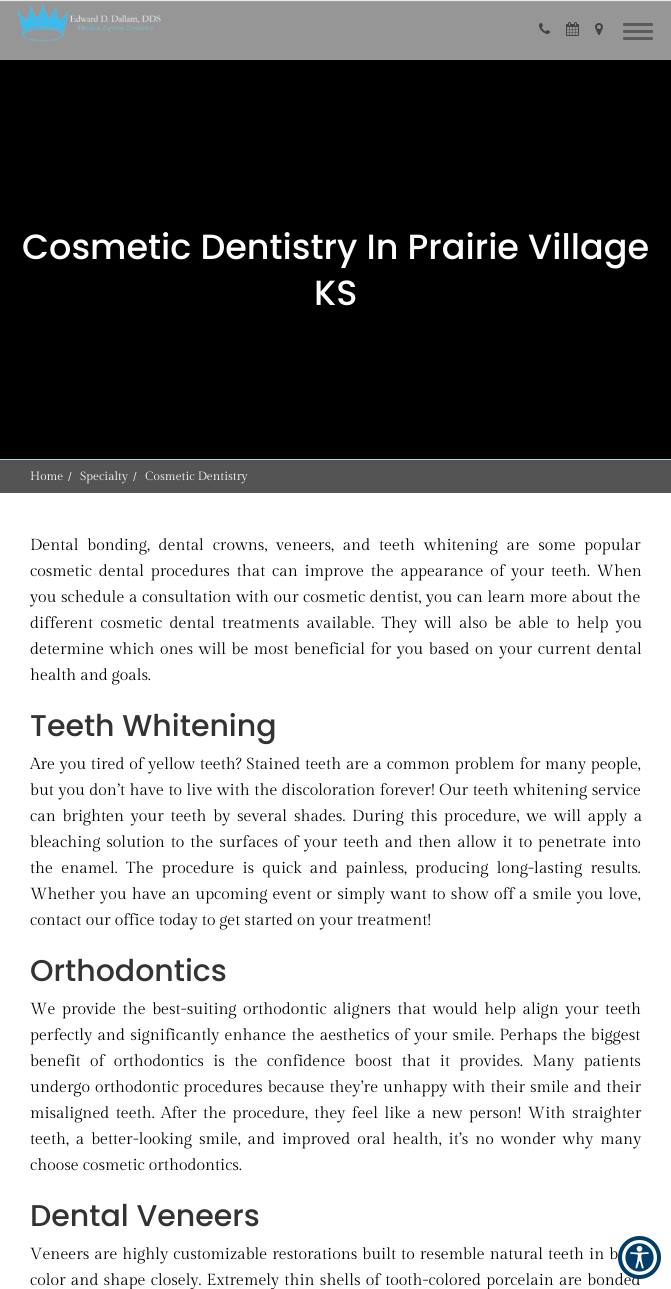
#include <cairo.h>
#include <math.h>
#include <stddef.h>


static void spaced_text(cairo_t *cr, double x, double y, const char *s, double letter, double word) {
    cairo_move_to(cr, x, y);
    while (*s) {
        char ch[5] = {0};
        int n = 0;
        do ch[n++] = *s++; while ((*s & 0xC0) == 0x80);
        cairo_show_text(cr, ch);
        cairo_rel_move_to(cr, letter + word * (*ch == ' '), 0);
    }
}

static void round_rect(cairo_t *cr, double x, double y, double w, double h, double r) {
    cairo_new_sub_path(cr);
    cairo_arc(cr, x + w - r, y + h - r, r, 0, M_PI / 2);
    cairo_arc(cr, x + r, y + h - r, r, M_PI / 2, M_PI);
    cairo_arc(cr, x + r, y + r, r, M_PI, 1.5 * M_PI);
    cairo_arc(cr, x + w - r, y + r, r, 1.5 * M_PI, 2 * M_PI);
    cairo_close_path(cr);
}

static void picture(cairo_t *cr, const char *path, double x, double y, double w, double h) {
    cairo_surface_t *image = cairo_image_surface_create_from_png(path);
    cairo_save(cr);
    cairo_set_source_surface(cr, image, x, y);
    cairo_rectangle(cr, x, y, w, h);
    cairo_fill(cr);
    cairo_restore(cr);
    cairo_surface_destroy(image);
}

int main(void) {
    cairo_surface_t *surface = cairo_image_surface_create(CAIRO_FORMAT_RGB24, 671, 1289);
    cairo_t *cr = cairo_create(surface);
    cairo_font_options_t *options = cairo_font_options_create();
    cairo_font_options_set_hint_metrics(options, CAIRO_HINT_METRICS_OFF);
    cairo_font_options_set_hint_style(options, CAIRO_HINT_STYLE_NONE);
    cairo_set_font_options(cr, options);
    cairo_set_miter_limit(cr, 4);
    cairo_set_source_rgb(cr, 1, 1, 1);
    cairo_paint(cr);
    cairo_set_source_rgb(cr, 0.588, 0.588, 0.588);
    cairo_rectangle(cr, 0, 2, 671, 58);
    cairo_fill(cr);
    cairo_set_source_rgb(cr, 0.631, 0.631, 0.631);
    cairo_rectangle(cr, 0, 1, 671, 1);
    cairo_fill(cr);
    cairo_set_source_rgb(cr, 0.906, 0.906, 0.906);
    cairo_rectangle(cr, 0, 0, 671, 1);
    cairo_fill(cr);
    picture(cr, "img1.png", 17, 3, 144, 39);
    picture(cr, "img2.png", 539, 23, 11, 11);
    picture(cr, "img3.png", 566, 22, 13, 14);
    picture(cr, "img4.png", 595, 23, 8, 12);
    cairo_set_source_rgb(cr, 0.357, 0.357, 0.357);
    round_rect(cr, 623, 23, 30, 3, 1);
    cairo_fill(cr);
    round_rect(cr, 623, 30, 30, 3, 1);
    cairo_fill(cr);
    round_rect(cr, 623, 37, 30, 3, 1);
    cairo_fill(cr);
    cairo_set_source_rgb(cr, 0, 0, 0);
    cairo_rectangle(cr, 0, 60, 671, 399);
    cairo_fill(cr);
    cairo_set_source_rgb(cr, 0.678, 0.847, 0.902);
    cairo_rectangle(cr, 0, 459, 671, 1);
    cairo_fill(cr);
    cairo_select_font_face(cr, "Poppins Medium", CAIRO_FONT_SLANT_NORMAL, CAIRO_FONT_WEIGHT_NORMAL);
    cairo_set_font_size(cr, 35);
    cairo_set_source_rgb(cr, 1, 1, 1);
    cairo_move_to(cr, 22, 259);
    cairo_show_text(cr, "Cosmetic Dentistry In Prairie Village");
    cairo_move_to(cr, 314, 305);
    cairo_show_text(cr, "KS");
    cairo_set_source_rgb(cr, 0.329, 0.329, 0.329);
    cairo_rectangle(cr, 0, 460, 671, 33);
    cairo_fill(cr);
    cairo_select_font_face(cr, "Gilda Display", CAIRO_FONT_SLANT_NORMAL, CAIRO_FONT_WEIGHT_NORMAL);
    cairo_set_font_size(cr, 12);
    cairo_set_source_rgb(cr, 1, 1, 1);
    cairo_move_to(cr, 30, 480);
    cairo_show_text(cr, "Home");
    cairo_move_to(cr, 68, 480);
    cairo_show_text(cr, "/");
    cairo_move_to(cr, 80, 480);
    cairo_show_text(cr, "Specialty");
    cairo_move_to(cr, 133, 480);
    cairo_show_text(cr, "/");
    cairo_move_to(cr, 145, 480);
    cairo_show_text(cr, "Cosmetic Dentistry");
    cairo_set_font_size(cr, 16);
    cairo_set_source_rgb(cr, 0, 0, 0);
    spaced_text(cr, 30, 550, "Dental bonding, dental crowns, veneers, and teeth whitening are some popular", 0, 4.75);
    spaced_text(cr, 30, 576, "cosmetic dental procedures that can improve the appearance of your teeth. When", 0, 2.75);
    spaced_text(cr, 30, 602, "you schedule a consultation with our cosmetic dentist, you can learn more about the", 0, 0.6);
    spaced_text(cr, 30, 628, "different cosmetic dental treatments available. They will also be able to help you", 0, 3.25);
    spaced_text(cr, 30, 654, "determine which ones will be most beneficial for you based on your current dental", 0, 1.5);
    cairo_move_to(cr, 30, 680);
    cairo_show_text(cr, "health and goals.");
    cairo_select_font_face(cr, "Poppins Medium", CAIRO_FONT_SLANT_NORMAL, CAIRO_FONT_WEIGHT_NORMAL);
    cairo_set_font_size(cr, 30);
    cairo_set_source_rgb(cr, 0.2, 0.2, 0.2);
    cairo_move_to(cr, 30, 736);
    cairo_show_text(cr, "Teeth Whitening");
    cairo_select_font_face(cr, "Gilda Display", CAIRO_FONT_SLANT_NORMAL, CAIRO_FONT_WEIGHT_NORMAL);
    cairo_set_font_size(cr, 16);
    cairo_set_source_rgb(cr, 0, 0, 0);
    spaced_text(cr, 30, 769, "Are you tired of yellow teeth? Stained teeth are a common problem for many people,", 0, 0.75);
    spaced_text(cr, 30, 795, "but you don’t have to live with the discoloration forever! Our teeth whitening service", 0, 0.5);
    spaced_text(cr, 30, 821, "can brighten your teeth by several shades. During this procedure, we will apply a", 0, 2.75);
    spaced_text(cr, 30, 847, "bleaching solution to the surfaces of your teeth and then allow it to penetrate into", 0, 1.9);
    spaced_text(cr, 30, 873, "the enamel. The procedure is quick and painless, producing long-lasting results.", 0, 4.25);
    spaced_text(cr, 30, 899, "Whether you have an upcoming event or simply want to show off a smile you love,", 0, 1.25);
    cairo_move_to(cr, 30, 925);
    cairo_show_text(cr, "contact our office today to get started on your treatment!");
    cairo_select_font_face(cr, "Poppins Medium", CAIRO_FONT_SLANT_NORMAL, CAIRO_FONT_WEIGHT_NORMAL);
    cairo_set_font_size(cr, 30);
    cairo_set_source_rgb(cr, 0.2, 0.2, 0.2);
    cairo_move_to(cr, 30, 981);
    cairo_show_text(cr, "Orthodontics");
    cairo_select_font_face(cr, "Gilda Display", CAIRO_FONT_SLANT_NORMAL, CAIRO_FONT_WEIGHT_NORMAL);
    cairo_set_font_size(cr, 16);
    cairo_set_source_rgb(cr, 0, 0, 0);
    spaced_text(cr, 30, 1014, "We provide the best-suiting orthodontic aligners that would help align your teeth", 0, 2.6);
    spaced_text(cr, 30, 1040, "perfectly and significantly enhance the aesthetics of your smile. Perhaps the biggest", 0, 1.25);
    spaced_text(cr, 30, 1066, "benefit of orthodontics is the confidence boost that it provides. Many patients", 0, 5.4);
    spaced_text(cr, 30, 1092, "undergo orthodontic procedures because they’re unhappy with their smile and their", 0, 1);
    spaced_text(cr, 30, 1118, "misaligned teeth. After the procedure, they feel like a new person! With straighter", 0, 2.4);
    spaced_text(cr, 30, 1144, "teeth, a better-looking smile, and improved oral health, it’s no wonder why many", 0, 2.9);
    cairo_move_to(cr, 30, 1170);
    cairo_show_text(cr, "choose cosmetic orthodontics.");
    cairo_select_font_face(cr, "Poppins Medium", CAIRO_FONT_SLANT_NORMAL, CAIRO_FONT_WEIGHT_NORMAL);
    cairo_set_font_size(cr, 30);
    cairo_set_source_rgb(cr, 0.2, 0.2, 0.2);
    cairo_move_to(cr, 30, 1226);
    cairo_show_text(cr, "Dental Veneers");
    cairo_select_font_face(cr, "Gilda Display", CAIRO_FONT_SLANT_NORMAL, CAIRO_FONT_WEIGHT_NORMAL);
    cairo_set_font_size(cr, 16);
    cairo_set_source_rgb(cr, 0, 0, 0);
    spaced_text(cr, 30, 1259, "Veneers are highly customizable restorations built to resemble natural teeth in b", 0, 1);
    spaced_text(cr, 30, 1285, "color and shape closely. Extremely thin shells of tooth-colored porcelain are bonded", 0, 1.25);
    cairo_set_source_rgb(cr, 0, 0.239, 0.408);
    cairo_new_path(cr);
    cairo_arc(cr, 639.5, 1257.5, 21.5, 0, 2 * M_PI);
    cairo_fill(cr);
    picture(cr, "img5.png", 622, 1240, 35, 35);
    cairo_surface_write_to_png(surface, "page.png");
    cairo_font_options_destroy(options);
    cairo_destroy(cr);
    cairo_surface_destroy(surface);
    return 0;
}
